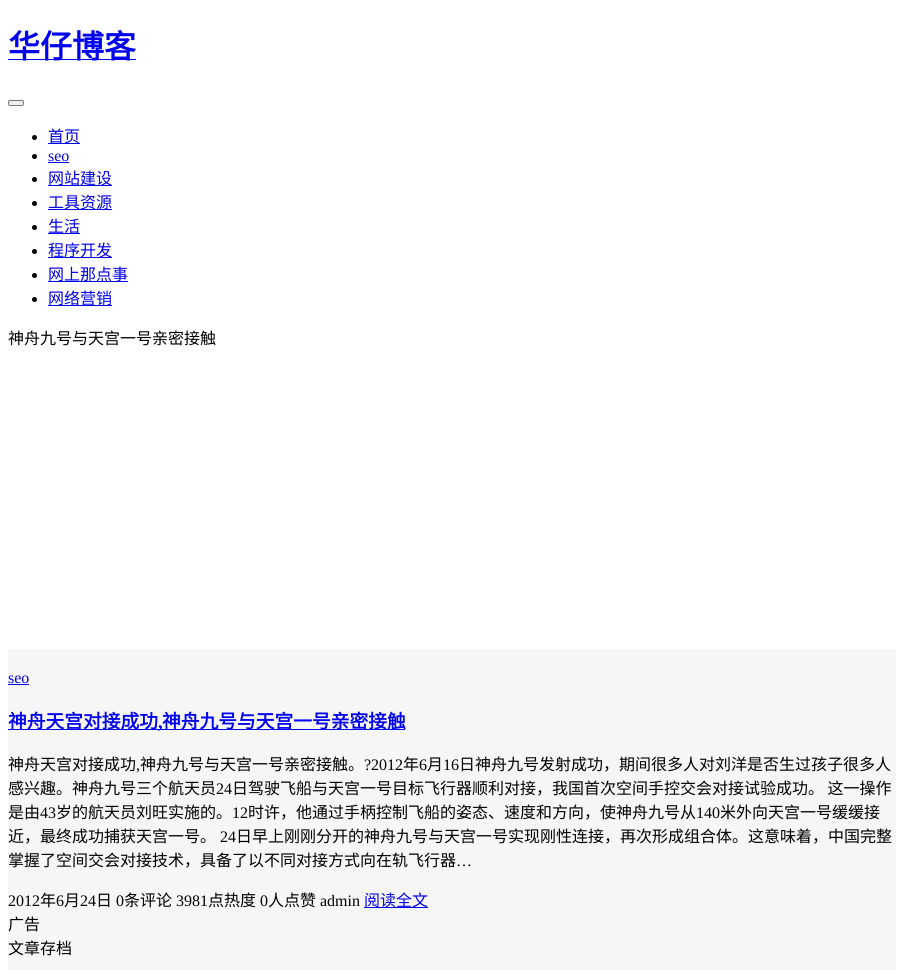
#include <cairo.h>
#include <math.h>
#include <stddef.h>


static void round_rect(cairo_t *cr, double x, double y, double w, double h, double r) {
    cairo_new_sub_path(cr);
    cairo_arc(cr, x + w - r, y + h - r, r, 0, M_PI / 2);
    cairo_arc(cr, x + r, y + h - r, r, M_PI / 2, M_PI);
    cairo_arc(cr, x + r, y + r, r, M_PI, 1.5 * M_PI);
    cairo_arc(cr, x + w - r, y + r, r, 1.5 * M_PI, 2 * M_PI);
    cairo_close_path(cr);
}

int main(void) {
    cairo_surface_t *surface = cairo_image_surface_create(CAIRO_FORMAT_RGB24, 904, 970);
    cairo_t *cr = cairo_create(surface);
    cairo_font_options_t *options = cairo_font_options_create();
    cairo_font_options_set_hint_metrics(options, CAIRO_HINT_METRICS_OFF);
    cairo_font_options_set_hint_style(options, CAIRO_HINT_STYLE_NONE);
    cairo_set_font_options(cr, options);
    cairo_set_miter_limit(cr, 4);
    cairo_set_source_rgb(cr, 1, 1, 1);
    cairo_paint(cr);
    cairo_set_source_rgb(cr, 0, 0, 0.933);
    cairo_rectangle(cr, 8, 59, 128, 1);
    cairo_fill(cr);
    cairo_select_font_face(cr, "Noto Sans CJK SC", CAIRO_FONT_SLANT_NORMAL, CAIRO_FONT_WEIGHT_BOLD);
    cairo_set_font_size(cr, 32);
    cairo_move_to(cr, 8, 58);
    cairo_show_text(cr, "华仔博客");
    cairo_set_source_rgb(cr, 0.937, 0.937, 0.937);
    round_rect(cr, 8.5, 100.5, 15, 5, 1.5);
    cairo_fill_preserve(cr);
    cairo_set_source_rgb(cr, 0.463, 0.463, 0.463);
    cairo_set_line_width(cr, 1);
    cairo_stroke(cr);
    cairo_set_source_rgb(cr, 0, 0, 0);
    cairo_arc(cr, 34.5, 137.5, 2.5, 0, 2 * M_PI);
    cairo_fill(cr);
    cairo_set_source_rgb(cr, 0, 0, 0.933);
    cairo_rectangle(cr, 48, 143, 32, 1);
    cairo_fill(cr);
    cairo_select_font_face(cr, "Noto Sans CJK SC", CAIRO_FONT_SLANT_NORMAL, CAIRO_FONT_WEIGHT_NORMAL);
    cairo_set_font_size(cr, 16);
    cairo_move_to(cr, 48, 142);
    cairo_show_text(cr, "首页");
    cairo_set_source_rgb(cr, 0, 0, 0);
    cairo_new_path(cr);
    cairo_arc(cr, 34.5, 156.5, 2.5, 0, 2 * M_PI);
    cairo_fill(cr);
    cairo_select_font_face(cr, "Liberation Serif", CAIRO_FONT_SLANT_NORMAL, CAIRO_FONT_WEIGHT_NORMAL);
    cairo_set_source_rgb(cr, 0, 0, 0.933);
    cairo_move_to(cr, 48, 161);
    cairo_show_text(cr, "seo");
    cairo_rectangle(cr, 48, 162, 21, 1);
    cairo_fill(cr);
    cairo_set_source_rgb(cr, 0, 0, 0);
    cairo_arc(cr, 34.5, 179.5, 2.5, 0, 2 * M_PI);
    cairo_fill(cr);
    cairo_set_source_rgb(cr, 0, 0, 0.933);
    cairo_rectangle(cr, 48, 185, 64, 1);
    cairo_fill(cr);
    cairo_select_font_face(cr, "Noto Sans CJK SC", CAIRO_FONT_SLANT_NORMAL, CAIRO_FONT_WEIGHT_NORMAL);
    cairo_move_to(cr, 48, 184);
    cairo_show_text(cr, "网站建设");
    cairo_set_source_rgb(cr, 0, 0, 0);
    cairo_new_path(cr);
    cairo_arc(cr, 34.5, 203.5, 2.5, 0, 2 * M_PI);
    cairo_fill(cr);
    cairo_set_source_rgb(cr, 0, 0, 0.933);
    cairo_rectangle(cr, 48, 209, 64, 1);
    cairo_fill(cr);
    cairo_move_to(cr, 48, 208);
    cairo_show_text(cr, "工具资源");
    cairo_set_source_rgb(cr, 0, 0, 0);
    cairo_new_path(cr);
    cairo_arc(cr, 34.5, 227.5, 2.5, 0, 2 * M_PI);
    cairo_fill(cr);
    cairo_set_source_rgb(cr, 0, 0, 0.933);
    cairo_rectangle(cr, 48, 233, 32, 1);
    cairo_fill(cr);
    cairo_move_to(cr, 48, 232);
    cairo_show_text(cr, "生活");
    cairo_set_source_rgb(cr, 0, 0, 0);
    cairo_new_path(cr);
    cairo_arc(cr, 34.5, 251.5, 2.5, 0, 2 * M_PI);
    cairo_fill(cr);
    cairo_set_source_rgb(cr, 0, 0, 0.933);
    cairo_rectangle(cr, 48, 257, 64, 1);
    cairo_fill(cr);
    cairo_move_to(cr, 48, 256);
    cairo_show_text(cr, "程序开发");
    cairo_set_source_rgb(cr, 0, 0, 0);
    cairo_new_path(cr);
    cairo_arc(cr, 34.5, 275.5, 2.5, 0, 2 * M_PI);
    cairo_fill(cr);
    cairo_set_source_rgb(cr, 0, 0, 0.933);
    cairo_rectangle(cr, 48, 281, 80, 1);
    cairo_fill(cr);
    cairo_move_to(cr, 48, 280);
    cairo_show_text(cr, "网上那点事");
    cairo_set_source_rgb(cr, 0, 0, 0);
    cairo_new_path(cr);
    cairo_arc(cr, 34.5, 299.5, 2.5, 0, 2 * M_PI);
    cairo_fill(cr);
    cairo_set_source_rgb(cr, 0, 0, 0.933);
    cairo_rectangle(cr, 48, 305, 64, 1);
    cairo_fill(cr);
    cairo_move_to(cr, 48, 304);
    cairo_show_text(cr, "网络营销");
    cairo_set_source_rgb(cr, 0, 0, 0);
    cairo_move_to(cr, 8, 344);
    cairo_show_text(cr, "神舟九号与天宫一号亲密接触");
    cairo_set_source_rgb(cr, 0.961, 0.961, 0.961);
    cairo_rectangle(cr, 8, 649, 888, 321);
    cairo_fill(cr);
    cairo_select_font_face(cr, "Liberation Serif", CAIRO_FONT_SLANT_NORMAL, CAIRO_FONT_WEIGHT_NORMAL);
    cairo_set_source_rgb(cr, 0, 0, 0.933);
    cairo_move_to(cr, 8, 683);
    cairo_show_text(cr, "seo");
    cairo_rectangle(cr, 8, 684, 21, 1);
    cairo_fill(cr);
    cairo_rectangle(cr, 8, 729, 397, 1);
    cairo_fill(cr);
    cairo_select_font_face(cr, "Noto Sans CJK SC", CAIRO_FONT_SLANT_NORMAL, CAIRO_FONT_WEIGHT_BOLD);
    cairo_set_font_size(cr, 18.75);
    cairo_move_to(cr, 8, 728);
    cairo_show_text(cr, "神舟天宫对接成功");
    cairo_select_font_face(cr, "Liberation Serif", CAIRO_FONT_SLANT_NORMAL, CAIRO_FONT_WEIGHT_BOLD);
    cairo_move_to(cr, 158, 728);
    cairo_show_text(cr, ",");
    cairo_select_font_face(cr, "Noto Sans CJK SC", CAIRO_FONT_SLANT_NORMAL, CAIRO_FONT_WEIGHT_BOLD);
    cairo_move_to(cr, 162, 728);
    cairo_show_text(cr, "神舟九号与天宫一号亲密接触");
    cairo_select_font_face(cr, "Noto Sans CJK SC", CAIRO_FONT_SLANT_NORMAL, CAIRO_FONT_WEIGHT_NORMAL);
    cairo_set_font_size(cr, 16);
    cairo_set_source_rgb(cr, 0, 0, 0);
    cairo_move_to(cr, 8, 770);
    cairo_show_text(cr, "神舟天宫对接成功");
    cairo_select_font_face(cr, "Liberation Serif", CAIRO_FONT_SLANT_NORMAL, CAIRO_FONT_WEIGHT_NORMAL);
    cairo_move_to(cr, 136, 770);
    cairo_show_text(cr, ",");
    cairo_select_font_face(cr, "Noto Sans CJK SC", CAIRO_FONT_SLANT_NORMAL, CAIRO_FONT_WEIGHT_NORMAL);
    cairo_move_to(cr, 140, 770);
    cairo_show_text(cr, "神舟九号与天宫一号亲密接触。");
    cairo_select_font_face(cr, "Liberation Serif", CAIRO_FONT_SLANT_NORMAL, CAIRO_FONT_WEIGHT_NORMAL);
    cairo_move_to(cr, 364, 770);
    cairo_show_text(cr, "?2012");
    cairo_select_font_face(cr, "Noto Sans CJK SC", CAIRO_FONT_SLANT_NORMAL, CAIRO_FONT_WEIGHT_NORMAL);
    cairo_move_to(cr, 403, 770);
    cairo_show_text(cr, "年");
    cairo_select_font_face(cr, "Liberation Serif", CAIRO_FONT_SLANT_NORMAL, CAIRO_FONT_WEIGHT_NORMAL);
    cairo_move_to(cr, 419, 770);
    cairo_show_text(cr, "6");
    cairo_select_font_face(cr, "Noto Sans CJK SC", CAIRO_FONT_SLANT_NORMAL, CAIRO_FONT_WEIGHT_NORMAL);
    cairo_move_to(cr, 427, 770);
    cairo_show_text(cr, "月");
    cairo_select_font_face(cr, "Liberation Serif", CAIRO_FONT_SLANT_NORMAL, CAIRO_FONT_WEIGHT_NORMAL);
    cairo_move_to(cr, 443, 770);
    cairo_show_text(cr, "16");
    cairo_select_font_face(cr, "Noto Sans CJK SC", CAIRO_FONT_SLANT_NORMAL, CAIRO_FONT_WEIGHT_NORMAL);
    cairo_move_to(cr, 459, 770);
    cairo_show_text(cr, "日神舟九号发射成功，期间很多人对刘洋是否生过孩子很多人");
    cairo_move_to(cr, 8, 794);
    cairo_show_text(cr, "感兴趣。神舟九号三个航天员");
    cairo_select_font_face(cr, "Liberation Serif", CAIRO_FONT_SLANT_NORMAL, CAIRO_FONT_WEIGHT_NORMAL);
    cairo_move_to(cr, 216, 794);
    cairo_show_text(cr, "24");
    cairo_select_font_face(cr, "Noto Sans CJK SC", CAIRO_FONT_SLANT_NORMAL, CAIRO_FONT_WEIGHT_NORMAL);
    cairo_move_to(cr, 232, 794);
    cairo_show_text(cr, "日驾驶飞船与天宫一号目标飞行器顺利对接，我国首次空间手控交会对接试验成功。 这一操作");
    cairo_move_to(cr, 8, 818);
    cairo_show_text(cr, "是由");
    cairo_select_font_face(cr, "Liberation Serif", CAIRO_FONT_SLANT_NORMAL, CAIRO_FONT_WEIGHT_NORMAL);
    cairo_move_to(cr, 40, 818);
    cairo_show_text(cr, "43");
    cairo_select_font_face(cr, "Noto Sans CJK SC", CAIRO_FONT_SLANT_NORMAL, CAIRO_FONT_WEIGHT_NORMAL);
    cairo_move_to(cr, 56, 818);
    cairo_show_text(cr, "岁的航天员刘旺实施的。");
    cairo_select_font_face(cr, "Liberation Serif", CAIRO_FONT_SLANT_NORMAL, CAIRO_FONT_WEIGHT_NORMAL);
    cairo_move_to(cr, 232, 818);
    cairo_show_text(cr, "12");
    cairo_select_font_face(cr, "Noto Sans CJK SC", CAIRO_FONT_SLANT_NORMAL, CAIRO_FONT_WEIGHT_NORMAL);
    cairo_move_to(cr, 248, 818);
    cairo_show_text(cr, "时许，他通过手柄控制飞船的姿态、速度和方向，使神舟九号从");
    cairo_select_font_face(cr, "Liberation Serif", CAIRO_FONT_SLANT_NORMAL, CAIRO_FONT_WEIGHT_NORMAL);
    cairo_move_to(cr, 696, 818);
    cairo_show_text(cr, "140");
    cairo_select_font_face(cr, "Noto Sans CJK SC", CAIRO_FONT_SLANT_NORMAL, CAIRO_FONT_WEIGHT_NORMAL);
    cairo_move_to(cr, 720, 818);
    cairo_show_text(cr, "米外向天宫一号缓缓接");
    cairo_move_to(cr, 8, 842);
    cairo_show_text(cr, "近，最终成功捕获天宫一号。");
    cairo_select_font_face(cr, "Liberation Serif", CAIRO_FONT_SLANT_NORMAL, CAIRO_FONT_WEIGHT_NORMAL);
    cairo_move_to(cr, 220, 842);
    cairo_show_text(cr, "24");
    cairo_select_font_face(cr, "Noto Sans CJK SC", CAIRO_FONT_SLANT_NORMAL, CAIRO_FONT_WEIGHT_NORMAL);
    cairo_move_to(cr, 236, 842);
    cairo_show_text(cr, "日早上刚刚分开的神舟九号与天宫一号实现刚性连接，再次形成组合体。这意味着，中国完整");
    cairo_move_to(cr, 8, 866);
    cairo_show_text(cr, "掌握了空间交会对接技术，具备了以不同对接方式向在轨飞行器");
    cairo_select_font_face(cr, "Liberation Serif", CAIRO_FONT_SLANT_NORMAL, CAIRO_FONT_WEIGHT_NORMAL);
    cairo_move_to(cr, 456, 866);
    cairo_show_text(cr, "…");
    cairo_move_to(cr, 8, 906);
    cairo_show_text(cr, "2012");
    cairo_select_font_face(cr, "Noto Sans CJK SC", CAIRO_FONT_SLANT_NORMAL, CAIRO_FONT_WEIGHT_NORMAL);
    cairo_move_to(cr, 40, 906);
    cairo_show_text(cr, "年");
    cairo_select_font_face(cr, "Liberation Serif", CAIRO_FONT_SLANT_NORMAL, CAIRO_FONT_WEIGHT_NORMAL);
    cairo_move_to(cr, 56, 906);
    cairo_show_text(cr, "6");
    cairo_select_font_face(cr, "Noto Sans CJK SC", CAIRO_FONT_SLANT_NORMAL, CAIRO_FONT_WEIGHT_NORMAL);
    cairo_move_to(cr, 64, 906);
    cairo_show_text(cr, "月");
    cairo_select_font_face(cr, "Liberation Serif", CAIRO_FONT_SLANT_NORMAL, CAIRO_FONT_WEIGHT_NORMAL);
    cairo_move_to(cr, 80, 906);
    cairo_show_text(cr, "24");
    cairo_select_font_face(cr, "Noto Sans CJK SC", CAIRO_FONT_SLANT_NORMAL, CAIRO_FONT_WEIGHT_NORMAL);
    cairo_move_to(cr, 96, 906);
    cairo_show_text(cr, "日");
    cairo_select_font_face(cr, "Liberation Serif", CAIRO_FONT_SLANT_NORMAL, CAIRO_FONT_WEIGHT_NORMAL);
    cairo_move_to(cr, 116, 906);
    cairo_show_text(cr, "0");
    cairo_select_font_face(cr, "Noto Sans CJK SC", CAIRO_FONT_SLANT_NORMAL, CAIRO_FONT_WEIGHT_NORMAL);
    cairo_move_to(cr, 124, 906);
    cairo_show_text(cr, "条评论");
    cairo_select_font_face(cr, "Liberation Serif", CAIRO_FONT_SLANT_NORMAL, CAIRO_FONT_WEIGHT_NORMAL);
    cairo_move_to(cr, 176, 906);
    cairo_show_text(cr, "3981");
    cairo_select_font_face(cr, "Noto Sans CJK SC", CAIRO_FONT_SLANT_NORMAL, CAIRO_FONT_WEIGHT_NORMAL);
    cairo_move_to(cr, 208, 906);
    cairo_show_text(cr, "点热度");
    cairo_select_font_face(cr, "Liberation Serif", CAIRO_FONT_SLANT_NORMAL, CAIRO_FONT_WEIGHT_NORMAL);
    cairo_move_to(cr, 260, 906);
    cairo_show_text(cr, "0");
    cairo_select_font_face(cr, "Noto Sans CJK SC", CAIRO_FONT_SLANT_NORMAL, CAIRO_FONT_WEIGHT_NORMAL);
    cairo_move_to(cr, 268, 906);
    cairo_show_text(cr, "人点赞");
    cairo_select_font_face(cr, "Liberation Serif", CAIRO_FONT_SLANT_NORMAL, CAIRO_FONT_WEIGHT_NORMAL);
    cairo_move_to(cr, 320, 906);
    cairo_show_text(cr, "admin");
    cairo_set_source_rgb(cr, 0, 0, 0.933);
    cairo_rectangle(cr, 364, 907, 64, 1);
    cairo_fill(cr);
    cairo_select_font_face(cr, "Noto Sans CJK SC", CAIRO_FONT_SLANT_NORMAL, CAIRO_FONT_WEIGHT_NORMAL);
    cairo_move_to(cr, 364, 906);
    cairo_show_text(cr, "阅读全文");
    cairo_set_source_rgb(cr, 0, 0, 0);
    cairo_move_to(cr, 8, 930);
    cairo_show_text(cr, "广告");
    cairo_move_to(cr, 8, 954);
    cairo_show_text(cr, "文章存档");
    cairo_surface_write_to_png(surface, "page.png");
    cairo_font_options_destroy(options);
    cairo_destroy(cr);
    cairo_surface_destroy(surface);
    return 0;
}
